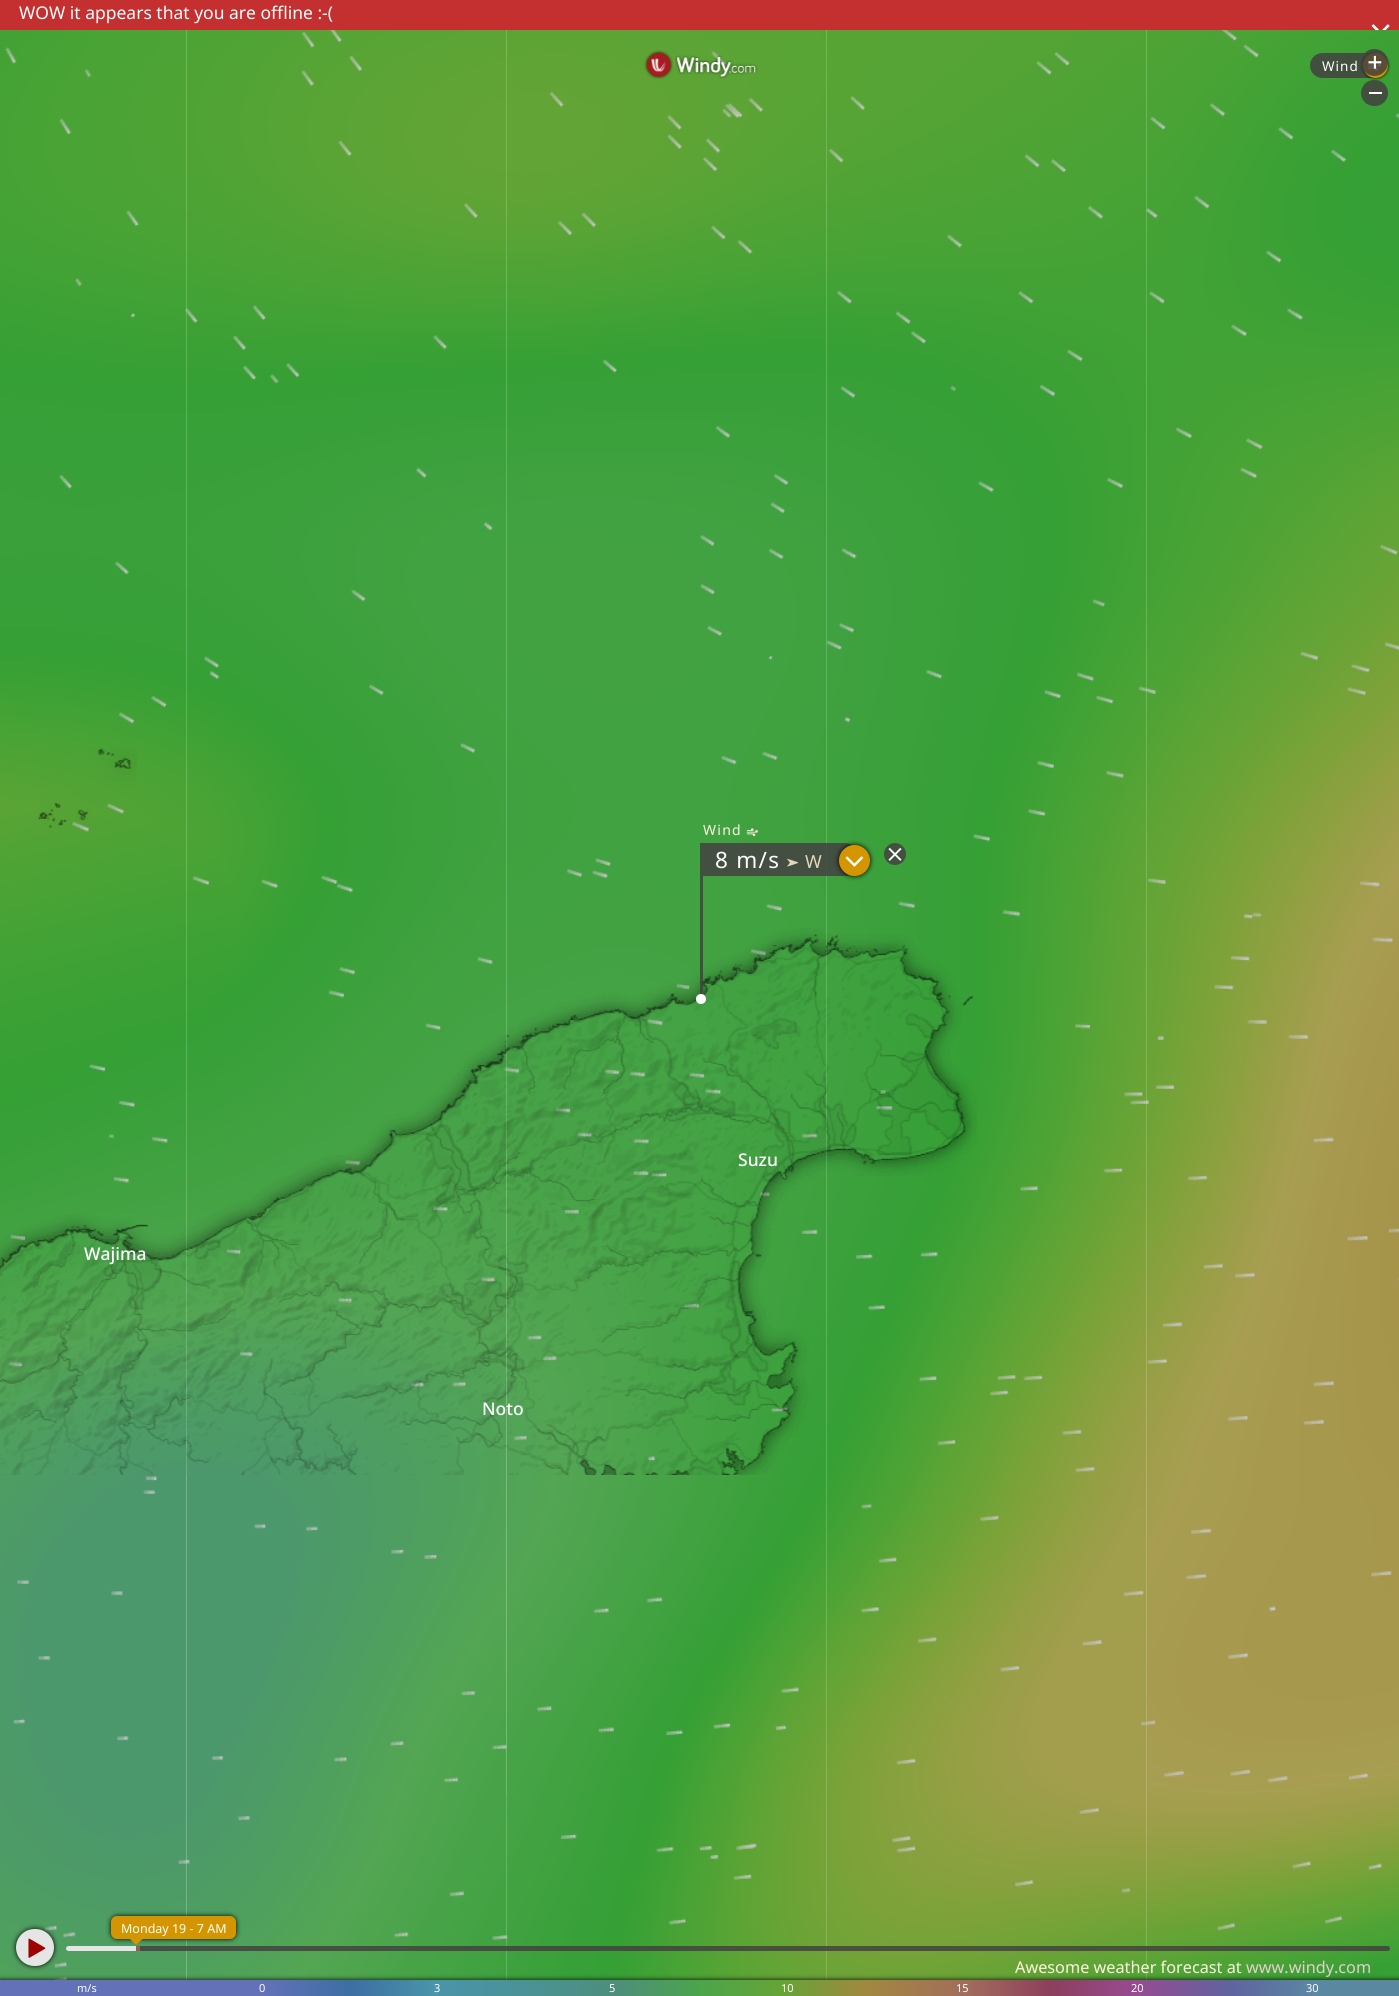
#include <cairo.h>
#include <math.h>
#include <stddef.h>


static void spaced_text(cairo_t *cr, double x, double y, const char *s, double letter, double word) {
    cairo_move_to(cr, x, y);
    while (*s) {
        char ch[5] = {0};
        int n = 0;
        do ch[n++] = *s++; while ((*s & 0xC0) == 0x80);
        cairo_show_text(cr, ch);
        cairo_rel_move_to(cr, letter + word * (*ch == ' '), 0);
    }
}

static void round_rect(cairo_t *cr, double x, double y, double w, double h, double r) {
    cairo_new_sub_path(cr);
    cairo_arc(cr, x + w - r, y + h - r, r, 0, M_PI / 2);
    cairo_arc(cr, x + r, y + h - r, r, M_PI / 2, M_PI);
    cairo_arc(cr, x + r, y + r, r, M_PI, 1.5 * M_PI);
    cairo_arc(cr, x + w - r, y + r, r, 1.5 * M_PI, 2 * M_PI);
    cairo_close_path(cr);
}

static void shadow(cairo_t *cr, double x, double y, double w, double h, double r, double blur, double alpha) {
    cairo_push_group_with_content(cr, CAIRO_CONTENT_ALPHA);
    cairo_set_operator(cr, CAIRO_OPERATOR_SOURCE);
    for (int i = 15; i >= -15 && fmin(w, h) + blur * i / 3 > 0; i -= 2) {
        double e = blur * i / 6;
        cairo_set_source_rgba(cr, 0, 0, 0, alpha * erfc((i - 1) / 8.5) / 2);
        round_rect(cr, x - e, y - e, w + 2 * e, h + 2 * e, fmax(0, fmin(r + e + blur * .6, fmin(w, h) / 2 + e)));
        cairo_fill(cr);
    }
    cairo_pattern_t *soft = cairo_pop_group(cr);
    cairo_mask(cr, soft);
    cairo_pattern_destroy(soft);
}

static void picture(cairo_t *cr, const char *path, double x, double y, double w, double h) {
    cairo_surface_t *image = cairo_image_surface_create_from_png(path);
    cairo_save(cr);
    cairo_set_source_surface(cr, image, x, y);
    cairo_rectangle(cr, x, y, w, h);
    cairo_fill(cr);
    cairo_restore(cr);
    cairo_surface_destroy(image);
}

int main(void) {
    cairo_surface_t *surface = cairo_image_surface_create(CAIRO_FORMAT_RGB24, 1399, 1996);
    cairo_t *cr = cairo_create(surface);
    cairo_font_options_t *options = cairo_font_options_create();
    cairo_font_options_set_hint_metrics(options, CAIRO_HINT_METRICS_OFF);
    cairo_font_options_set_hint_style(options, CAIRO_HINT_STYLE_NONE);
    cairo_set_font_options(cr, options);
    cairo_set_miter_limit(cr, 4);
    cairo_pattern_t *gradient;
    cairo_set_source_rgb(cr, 1, 1, 1);
    cairo_paint(cr);
    cairo_set_source_rgb(cr, 0.769, 0.184, 0.184);
    cairo_rectangle(cr, 0, 0, 1399, 30);
    cairo_fill(cr);
    cairo_select_font_face(cr, "Noto Sans", CAIRO_FONT_SLANT_NORMAL, CAIRO_FONT_WEIGHT_NORMAL);
    cairo_set_font_size(cr, 17.5);
    cairo_set_source_rgb(cr, 1, 1, 1);
    cairo_move_to(cr, 19, 19);
    cairo_show_text(cr, "WOW it appears that you are offline :-(");
    picture(cr, "img1.png", 1371, 24, 19, 6);
    picture(cr, "img8.png", 506, 30, 321, 165);
    picture(cr, "img7.png", 186, 30, 321, 165);
    picture(cr, "img6.png", 0, 30, 187, 165);
    picture(cr, "img9.png", 826, 30, 321, 165);
    picture(cr, "img10.png", 1146, 30, 253, 165);
    picture(cr, "img13.png", 506, 195, 321, 320);
    picture(cr, "img12.png", 186, 195, 321, 320);
    picture(cr, "img11.png", 0, 195, 187, 320);
    picture(cr, "img14.png", 826, 195, 321, 320);
    picture(cr, "img15.png", 1146, 195, 253, 320);
    picture(cr, "img18.png", 506, 515, 321, 320);
    picture(cr, "img17.png", 186, 515, 321, 320);
    picture(cr, "img16.png", 0, 515, 187, 320);
    picture(cr, "img19.png", 826, 515, 321, 320);
    picture(cr, "img20.png", 1146, 515, 253, 320);
    picture(cr, "img23.png", 506, 835, 321, 320);
    picture(cr, "img22.png", 186, 835, 321, 320);
    picture(cr, "img21.png", 0, 835, 187, 320);
    picture(cr, "img24.png", 826, 835, 321, 320);
    picture(cr, "img25.png", 1146, 835, 253, 320);
    picture(cr, "img27.png", 186, 1155, 320, 320);
    picture(cr, "img26.png", 0, 1155, 187, 320);
    picture(cr, "img28.png", 506, 1155, 321, 320);
    picture(cr, "img29.png", 826, 1155, 321, 320);
    picture(cr, "img30.png", 1146, 1155, 253, 320);
    picture(cr, "img31.png", 0, 1475, 186, 320);
    picture(cr, "img32.png", 186, 1475, 320, 320);
    picture(cr, "img33.png", 506, 1475, 321, 320);
    picture(cr, "img34.png", 826, 1475, 321, 320);
    picture(cr, "img35.png", 1146, 1475, 253, 320);
    picture(cr, "img36.png", 0, 1795, 186, 185);
    picture(cr, "img38.png", 506, 1795, 321, 185);
    picture(cr, "img37.png", 186, 1795, 321, 185);
    picture(cr, "img39.png", 826, 1795, 321, 185);
    picture(cr, "img40.png", 1146, 1795, 253, 185);
    picture(cr, "img41.png", 5, 30, 1394, 1950);
    picture(cr, "img2.png", 644, 50, 29, 29);
    picture(cr, "img3.png", 675, 55, 83, 24);
    cairo_set_source_rgba(cr, 0.267, 0.255, 0.255, 0.84);
    round_rect(cr, 1310, 53, 78, 25, 12.5);
    cairo_fill(cr);
    cairo_set_font_size(cr, 13.5);
    cairo_set_source_rgb(cr, 1, 1, 1);
    spaced_text(cr, 1322, 71, "Wind", 1, 0);
    cairo_set_source_rgb(cr, 0, 0, 0);
    shadow(cr, 1363, 53, 25, 25, 12.5, 1.5, 1);
    cairo_set_source_rgb(cr, 0.831, 0.584, 0);
    cairo_arc(cr, 1375.5, 65.5, 12.5, 0, 2 * M_PI);
    cairo_fill(cr);
    picture(cr, "img4.png", 1367, 61, 15, 10);
    cairo_set_source_rgba(cr, 0.267, 0.255, 0.255, 0.84);
    cairo_arc(cr, 1374.5, 62.5, 13.5, 0, 2 * M_PI);
    cairo_fill(cr);
    picture(cr, "img5.png", 1368, 55, 14, 14);
    round_rect(cr, 1361, 80, 27, 26, 13);
    cairo_fill(cr);
    cairo_set_source_rgb(cr, 1, 1, 1);
    cairo_rectangle(cr, 1369, 92, 13, 2);
    cairo_fill(cr);
    picture(cr, "img42.png", 38, 748, 99, 80);
    picture(cr, "img44.png", 506, 927, 321, 228);
    picture(cr, "img43.png", 346, 1034, 161, 121);
    picture(cr, "img45.png", 826, 934, 151, 221);
    picture(cr, "img47.png", 506, 1155, 321, 320);
    picture(cr, "img46.png", 186, 1155, 321, 320);
    picture(cr, "img48.png", 826, 1155, 134, 21);
    picture(cr, "img49.png", 0, 1214, 186, 261);
    cairo_set_source_rgba(cr, 0.267, 0.255, 0.255, 0.84);
    cairo_rectangle(cr, 700, 843, 3, 156);
    cairo_fill(cr);
    cairo_set_source_rgb(cr, 1, 1, 1);
    cairo_arc(cr, 701, 999, 5, 0, 2 * M_PI);
    cairo_fill(cr);
    cairo_set_source_rgba(cr, 0.267, 0.255, 0.255, 0.84);
    cairo_new_path(cr);
    cairo_move_to(cr, 703, 843);
    cairo_line_to(cr, 844.5, 843);
    cairo_curve_to(cr, 853.5, 843, 861, 850.5, 861, 859.5);
    cairo_curve_to(cr, 861, 868.5, 853.5, 876, 844.5, 876);
    cairo_line_to(cr, 703, 876);
    cairo_close_path(cr);
    cairo_fill(cr);
    cairo_set_font_size(cr, 14);
    cairo_set_source_rgb(cr, 1, 0.953, 0.882);
    spaced_text(cr, 703, 835, "Wind", 1.25, 0);
    picture(cr, "img50.png", 746, 828, 12, 8);
    cairo_set_font_size(cr, 22.5);
    cairo_set_source_rgb(cr, 1, 1, 1);
    spaced_text(cr, 715, 868, "8 m/s", 1.25, 0);
    picture(cr, "img51.png", 787, 858, 12, 9);
    cairo_set_font_size(cr, 18);
    cairo_set_source_rgb(cr, 0.894, 0.835, 0.741);
    spaced_text(cr, 805, 868, "W", 1.25, 0);
    cairo_set_source_rgb(cr, 0, 0, 0);
    shadow(cr, 839, 845, 31, 31, 15.5, 2.5, 1);
    cairo_set_source_rgb(cr, 0.831, 0.584, 0);
    cairo_arc(cr, 854.5, 860.5, 15.5, 0, 2 * M_PI);
    cairo_fill(cr);
    picture(cr, "img52.png", 845, 856, 19, 11);
    cairo_set_source_rgb(cr, 0.263, 0.314, 0.251);
    cairo_arc(cr, 895, 854, 11, 0, 2 * M_PI);
    cairo_fill(cr);
    picture(cr, "img53.png", 888, 847, 14, 14);
    cairo_select_font_face(cr, "Noto Sans Medium", CAIRO_FONT_SLANT_NORMAL, CAIRO_FONT_WEIGHT_NORMAL);
    cairo_set_font_size(cr, 17.5);
    cairo_set_source_rgb(cr, 1, 1, 1);
    cairo_move_to(cr, 738, 1166);
    cairo_show_text(cr, "Suzu");
    cairo_move_to(cr, 84, 1260);
    cairo_show_text(cr, "Wajima");
    cairo_move_to(cr, 482, 1415);
    cairo_show_text(cr, "Noto");
    cairo_set_source_rgb(cr, 0, 0, 0);
    shadow(cr, 16, 1929, 38, 37, 18.5, 2.5, 1);
    cairo_set_source_rgb(cr, 0.898, 0.898, 0.898);
    round_rect(cr, 16, 1929, 38, 37, 18.5);
    cairo_fill(cr);
    picture(cr, "img54.png", 28, 1938, 18, 20);
    cairo_set_source_rgb(cr, 0, 0, 0);
    shadow(cr, 111, 1916, 125, 23, 6, 2.5, 1);
    cairo_set_source_rgb(cr, 0.831, 0.584, 0);
    round_rect(cr, 111, 1916, 125, 23, 6);
    cairo_fill(cr);
    cairo_select_font_face(cr, "Noto Sans", CAIRO_FONT_SLANT_NORMAL, CAIRO_FONT_WEIGHT_NORMAL);
    cairo_set_font_size(cr, 12.5);
    cairo_set_source_rgb(cr, 1, 1, 1);
    cairo_move_to(cr, 121, 1933);
    cairo_show_text(cr, "Monday 19 - 7 AM");
    cairo_set_source_rgb(cr, 0.831, 0.584, 0);
    cairo_new_path(cr);
    cairo_move_to(cr, 130, 1939);
    cairo_line_to(cr, 142.5, 1939);
    cairo_line_to(cr, 136, 1945);
    cairo_close_path(cr);
    cairo_fill(cr);
    cairo_set_source_rgba(cr, 0.267, 0.255, 0.255, 0.84);
    round_rect(cr, 66, 1946, 1324, 5, 2.5);
    cairo_fill(cr);
    cairo_set_source_rgb(cr, 0.898, 0.898, 0.898);
    cairo_new_path(cr);
    cairo_move_to(cr, 68.5, 1946);
    cairo_line_to(cr, 136, 1946);
    cairo_line_to(cr, 136, 1951);
    cairo_line_to(cr, 68.5, 1951);
    cairo_curve_to(cr, 67, 1951, 66, 1950, 66, 1948.5);
    cairo_curve_to(cr, 66, 1947, 67, 1946, 68.5, 1946);
    cairo_close_path(cr);
    cairo_fill(cr);
    cairo_set_source_rgb(cr, 0.58, 0.376, 0.318);
    cairo_rectangle(cr, 136, 1946, 4, 5);
    cairo_fill(cr);
    cairo_set_source_rgb(cr, 0, 0, 0);
    shadow(cr, 0, 1980, 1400, 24, 0, 2.5, 1);
    cairo_set_font_size(cr, 16.25);
    cairo_set_source_rgb(cr, 1, 0.953, 0.882);
    cairo_move_to(cr, 1015, 1973);
    cairo_show_text(cr, "Awesome weather forecast at");
    cairo_set_source_rgb(cr, 0.902, 0.808, 0.808);
    cairo_move_to(cr, 1246, 1973);
    cairo_show_text(cr, "www.windy.com");
    gradient = cairo_pattern_create_linear(0, 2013, 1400, 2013);
    cairo_pattern_add_color_stop_rgba(gradient, 0, 0.384, 0.443, 0.722, 1);
    cairo_pattern_add_color_stop_rgba(gradient, 0.19, 0.384, 0.443, 0.722, 1);
    cairo_pattern_add_color_stop_rgba(gradient, 0.25, 0.239, 0.431, 0.639, 1);
    cairo_pattern_add_color_stop_rgba(gradient, 0.31, 0.29, 0.58, 0.667, 1);
    cairo_pattern_add_color_stop_rgba(gradient, 0.38, 0.29, 0.573, 0.58, 1);
    cairo_pattern_add_color_stop_rgba(gradient, 0.44, 0.302, 0.557, 0.486, 1);
    cairo_pattern_add_color_stop_rgba(gradient, 0.5, 0.298, 0.643, 0.298, 1);
    cairo_pattern_add_color_stop_rgba(gradient, 0.56, 0.404, 0.643, 0.212, 1);
    cairo_pattern_add_color_stop_rgba(gradient, 0.62, 0.635, 0.529, 0.251, 1);
    cairo_pattern_add_color_stop_rgba(gradient, 0.69, 0.635, 0.427, 0.361, 1);
    cairo_pattern_add_color_stop_rgba(gradient, 0.75, 0.553, 0.247, 0.361, 1);
    cairo_pattern_add_color_stop_rgba(gradient, 0.81, 0.592, 0.294, 0.569, 1);
    cairo_pattern_add_color_stop_rgba(gradient, 0.88, 0.373, 0.392, 0.627, 1);
    cairo_pattern_add_color_stop_rgba(gradient, 0.94, 0.357, 0.533, 0.631, 1);
    cairo_pattern_add_color_stop_rgba(gradient, 1, 0.357, 0.533, 0.631, 1);
    cairo_set_source(cr, gradient);
    cairo_pattern_destroy(gradient);
    cairo_rectangle(cr, 0, 1980, 1399, 16);
    cairo_fill(cr);
    cairo_set_font_size(cr, 11);
    cairo_set_source_rgb(cr, 1, 1, 1);
    cairo_move_to(cr, 77, 1992);
    cairo_show_text(cr, "m/s");
    cairo_move_to(cr, 259, 1992);
    cairo_show_text(cr, "0");
    cairo_move_to(cr, 434, 1992);
    cairo_show_text(cr, "3");
    cairo_move_to(cr, 609, 1992);
    cairo_show_text(cr, "5");
    cairo_move_to(cr, 781, 1992);
    cairo_show_text(cr, "10");
    cairo_move_to(cr, 956, 1992);
    cairo_show_text(cr, "15");
    cairo_move_to(cr, 1131, 1992);
    cairo_show_text(cr, "20");
    cairo_move_to(cr, 1306, 1992);
    cairo_show_text(cr, "30");
    cairo_surface_write_to_png(surface, "page.png");
    cairo_font_options_destroy(options);
    cairo_destroy(cr);
    cairo_surface_destroy(surface);
    return 0;
}
